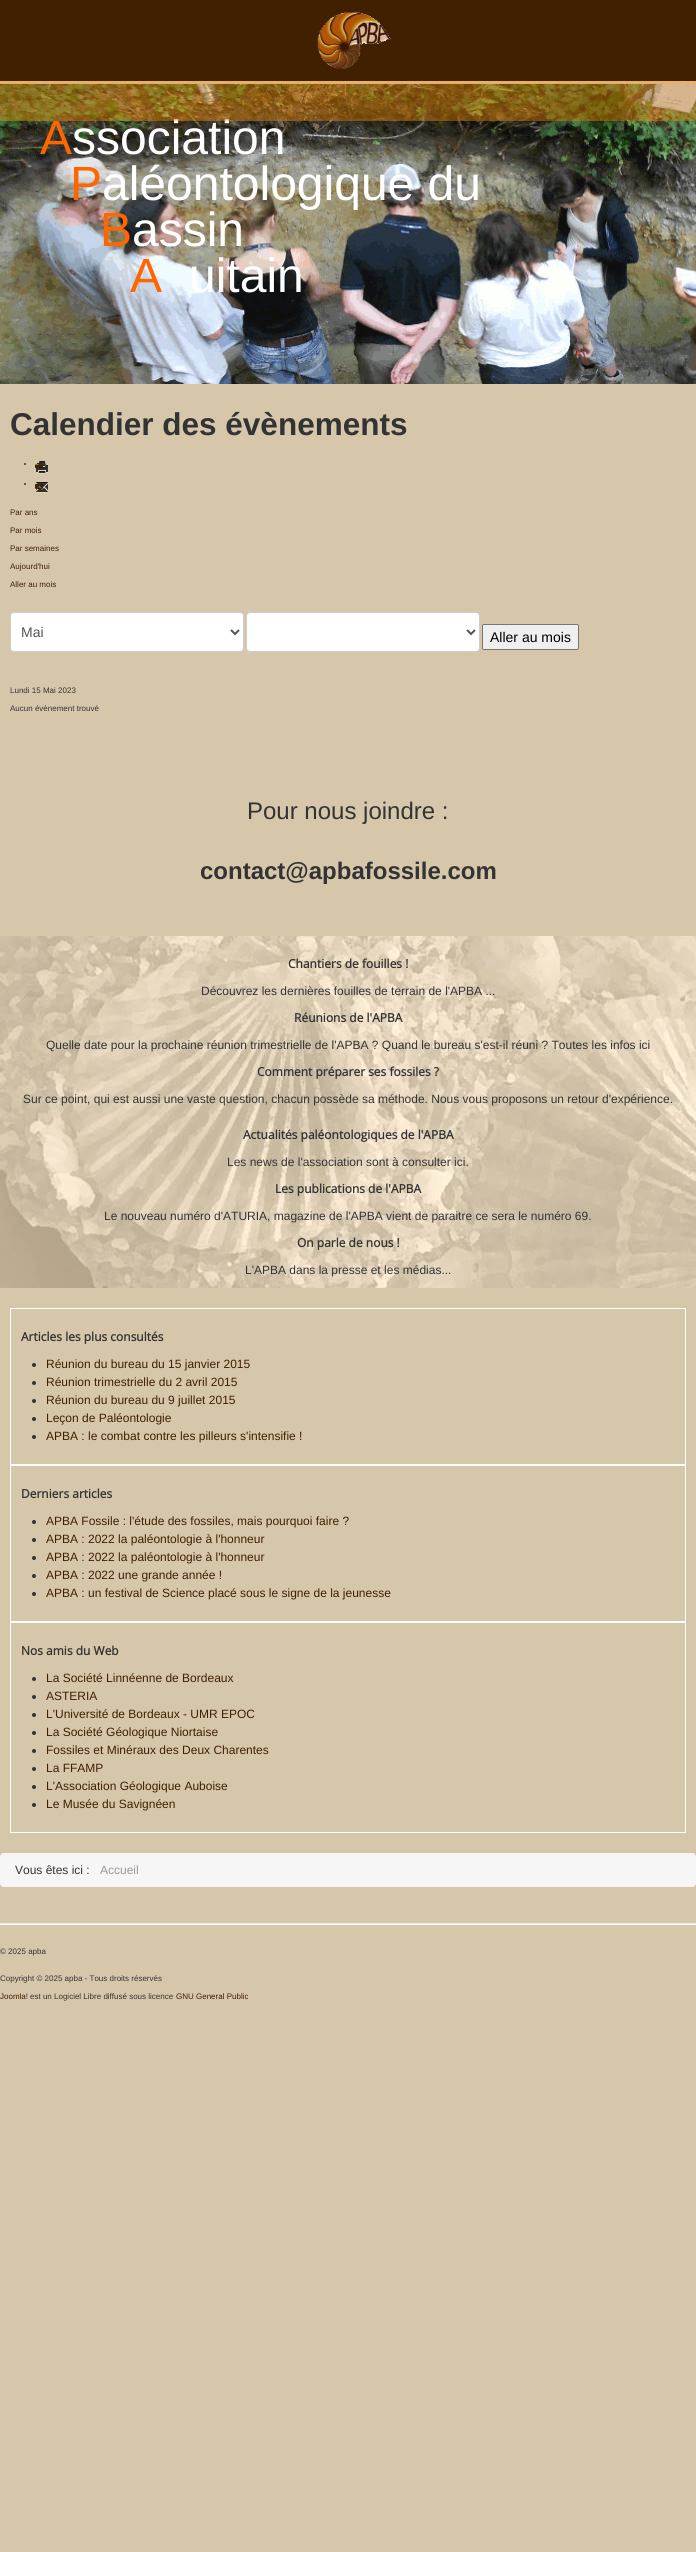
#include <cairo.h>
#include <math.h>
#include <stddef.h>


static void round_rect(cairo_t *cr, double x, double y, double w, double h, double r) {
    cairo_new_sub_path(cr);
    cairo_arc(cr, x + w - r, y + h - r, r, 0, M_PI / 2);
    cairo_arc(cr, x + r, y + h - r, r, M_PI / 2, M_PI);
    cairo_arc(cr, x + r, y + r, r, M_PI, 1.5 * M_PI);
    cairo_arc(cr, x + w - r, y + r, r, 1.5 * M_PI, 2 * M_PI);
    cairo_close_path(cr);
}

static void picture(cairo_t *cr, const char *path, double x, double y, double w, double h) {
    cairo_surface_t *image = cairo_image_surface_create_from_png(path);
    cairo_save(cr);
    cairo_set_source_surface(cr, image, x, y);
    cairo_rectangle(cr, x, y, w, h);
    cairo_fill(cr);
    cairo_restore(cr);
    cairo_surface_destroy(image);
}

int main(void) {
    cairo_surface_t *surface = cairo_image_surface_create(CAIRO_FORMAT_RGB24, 696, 2552);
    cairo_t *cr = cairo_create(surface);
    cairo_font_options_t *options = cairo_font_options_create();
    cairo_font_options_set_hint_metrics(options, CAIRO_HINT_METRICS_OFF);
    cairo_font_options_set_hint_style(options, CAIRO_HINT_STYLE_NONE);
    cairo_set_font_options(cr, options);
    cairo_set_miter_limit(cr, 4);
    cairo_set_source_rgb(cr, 0.839, 0.78, 0.671);
    cairo_paint(cr);
    cairo_set_source_rgb(cr, 0.251, 0.125, 0);
    cairo_rectangle(cr, 0, 0, 696, 81);
    cairo_fill(cr);
    picture(cr, "img1.png", 317, 12, 74, 57);
    picture(cr, "img2.png", 0, 84, 696, 300);
    cairo_select_font_face(cr, "Liberation Sans", CAIRO_FONT_SLANT_NORMAL, CAIRO_FONT_WEIGHT_NORMAL);
    cairo_set_font_size(cr, 48);
    cairo_set_source_rgb(cr, 1, 1, 1);
    cairo_move_to(cr, 72, 154);
    cairo_show_text(cr, "ssociation");
    cairo_set_source_rgba(cr, 1, 0.569, 0, 0.4);
    cairo_rectangle(cr, 0, 81, 696, 40);
    cairo_fill(cr);
    cairo_set_source_rgb(cr, 1, 0.4, 0);
    cairo_move_to(cr, 40, 154);
    cairo_show_text(cr, "A");
    cairo_move_to(cr, 70, 200);
    cairo_show_text(cr, "P");
    cairo_set_source_rgb(cr, 1, 1, 1);
    cairo_move_to(cr, 102, 200);
    cairo_show_text(cr, "aléontologique du");
    cairo_set_source_rgb(cr, 1, 0.4, 0);
    cairo_move_to(cr, 100, 246);
    cairo_show_text(cr, "B");
    cairo_set_source_rgb(cr, 1, 1, 1);
    cairo_move_to(cr, 132, 246);
    cairo_show_text(cr, "assin");
    cairo_set_source_rgb(cr, 1, 0.4, 0);
    cairo_move_to(cr, 130, 292);
    cairo_show_text(cr, "A");
    cairo_set_source_rgb(cr, 1, 1, 1);
    cairo_move_to(cr, 189, 292);
    cairo_show_text(cr, "uitain");
    cairo_select_font_face(cr, "Liberation Sans", CAIRO_FONT_SLANT_NORMAL, CAIRO_FONT_WEIGHT_BOLD);
    cairo_set_font_size(cr, 31.5);
    cairo_set_source_rgb(cr, 0.2, 0.2, 0.2);
    cairo_move_to(cr, 10, 435);
    cairo_show_text(cr, "Calendier des évènements");
    cairo_new_path(cr);
    cairo_arc(cr, 25, 464, 1, 0, 2 * M_PI);
    cairo_fill(cr);
    picture(cr, "img3.png", 36, 461, 12, 13);
    picture(cr, "img4.png", 35, 463, 8, 7);
    cairo_arc(cr, 25, 484, 1, 0, 2 * M_PI);
    cairo_fill(cr);
    picture(cr, "img5.png", 36, 482, 12, 11);
    picture(cr, "img6.png", 35, 484, 8, 5);
    cairo_select_font_face(cr, "Liberation Sans", CAIRO_FONT_SLANT_NORMAL, CAIRO_FONT_WEIGHT_NORMAL);
    cairo_set_font_size(cr, 8);
    cairo_set_source_rgb(cr, 0.251, 0.125, 0);
    cairo_move_to(cr, 10, 515);
    cairo_show_text(cr, "Par ans");
    cairo_move_to(cr, 10, 533);
    cairo_show_text(cr, "Par mois");
    cairo_move_to(cr, 10, 551);
    cairo_show_text(cr, "Par semaines");
    cairo_move_to(cr, 10, 569);
    cairo_show_text(cr, "Aujourd'hui");
    cairo_move_to(cr, 10, 587);
    cairo_show_text(cr, "Aller au mois");
    cairo_set_source_rgb(cr, 1, 1, 1);
    round_rect(cr, 10.5, 612.5, 233, 39, 3.5);
    cairo_fill_preserve(cr);
    cairo_set_source_rgb(cr, 0.8, 0.8, 0.8);
    cairo_set_line_width(cr, 1);
    cairo_stroke(cr);
    cairo_new_path(cr);
    cairo_move_to(cr, 231, 630);
    cairo_line_to(cr, 235, 634);
    cairo_line_to(cr, 239, 630);
    cairo_set_source_rgb(cr, 0.333, 0.333, 0.333);
    cairo_set_line_width(cr, 2);
    cairo_stroke(cr);
    cairo_set_font_size(cr, 14);
    cairo_move_to(cr, 21, 637);
    cairo_show_text(cr, "Mai");
    cairo_set_source_rgb(cr, 1, 1, 1);
    round_rect(cr, 246.5, 612.5, 233, 39, 3.5);
    cairo_fill_preserve(cr);
    cairo_set_source_rgb(cr, 0.8, 0.8, 0.8);
    cairo_set_line_width(cr, 1);
    cairo_stroke(cr);
    cairo_new_path(cr);
    cairo_move_to(cr, 467, 630);
    cairo_line_to(cr, 471, 634);
    cairo_line_to(cr, 475, 630);
    cairo_set_source_rgb(cr, 0.333, 0.333, 0.333);
    cairo_set_line_width(cr, 2);
    cairo_stroke(cr);
    cairo_set_source_rgb(cr, 0.937, 0.937, 0.937);
    round_rect(cr, 482.5, 624.5, 96, 25, 1.5);
    cairo_fill_preserve(cr);
    cairo_set_source_rgb(cr, 0.463, 0.463, 0.463);
    cairo_set_line_width(cr, 1);
    cairo_stroke(cr);
    cairo_set_source_rgb(cr, 0, 0, 0);
    cairo_move_to(cr, 490, 642);
    cairo_show_text(cr, "Aller au mois");
    cairo_set_font_size(cr, 8);
    cairo_set_source_rgb(cr, 0.2, 0.2, 0.2);
    cairo_move_to(cr, 10, 693);
    cairo_show_text(cr, "Lundi 15 Mai 2023");
    cairo_move_to(cr, 10, 711);
    cairo_show_text(cr, "Aucun évènement trouvé");
    cairo_set_font_size(cr, 24);
    cairo_move_to(cr, 247, 819);
    cairo_show_text(cr, "Pour nous joindre :");
    cairo_select_font_face(cr, "Liberation Sans", CAIRO_FONT_SLANT_NORMAL, CAIRO_FONT_WEIGHT_BOLD);
    cairo_move_to(cr, 200, 879);
    cairo_show_text(cr, "contact@apbafossile.com");
    picture(cr, "img7.png", 0, 936, 696, 352);
    cairo_select_font_face(cr, "Open Sans", CAIRO_FONT_SLANT_NORMAL, CAIRO_FONT_WEIGHT_BOLD);
    cairo_set_font_size(cr, 12);
    cairo_move_to(cr, 288, 968);
    cairo_show_text(cr, "Chantiers de fouilles !");
    cairo_select_font_face(cr, "Liberation Sans", CAIRO_FONT_SLANT_NORMAL, CAIRO_FONT_WEIGHT_NORMAL);
    cairo_move_to(cr, 201, 995);
    cairo_show_text(cr, "Découvrez les dernières fouilles de terrain de l'APBA ...");
    cairo_select_font_face(cr, "Open Sans", CAIRO_FONT_SLANT_NORMAL, CAIRO_FONT_WEIGHT_BOLD);
    cairo_move_to(cr, 294, 1022);
    cairo_show_text(cr, "Réunions de l'APBA");
    cairo_select_font_face(cr, "Liberation Sans", CAIRO_FONT_SLANT_NORMAL, CAIRO_FONT_WEIGHT_NORMAL);
    cairo_move_to(cr, 46, 1049);
    cairo_show_text(cr, "Quelle date pour la prochaine réunion trimestrielle de l'APBA ? Quand le bureau s'est-il réuni ? Toutes les infos ici");
    cairo_select_font_face(cr, "Open Sans", CAIRO_FONT_SLANT_NORMAL, CAIRO_FONT_WEIGHT_BOLD);
    cairo_move_to(cr, 257, 1076);
    cairo_show_text(cr, "Comment préparer ses fossiles ?");
    cairo_select_font_face(cr, "Liberation Sans", CAIRO_FONT_SLANT_NORMAL, CAIRO_FONT_WEIGHT_NORMAL);
    cairo_move_to(cr, 23, 1103);
    cairo_show_text(cr, "Sur ce point, qui est aussi une vaste question, chacun possède sa méthode. Nous vous proposons un retour d'expérience.");
    cairo_select_font_face(cr, "Open Sans", CAIRO_FONT_SLANT_NORMAL, CAIRO_FONT_WEIGHT_BOLD);
    cairo_move_to(cr, 243, 1139);
    cairo_show_text(cr, "Actualités paléontologiques de l'APBA");
    cairo_select_font_face(cr, "Liberation Sans", CAIRO_FONT_SLANT_NORMAL, CAIRO_FONT_WEIGHT_NORMAL);
    cairo_move_to(cr, 227, 1166);
    cairo_show_text(cr, "Les news de l'association sont à consulter ici.");
    cairo_select_font_face(cr, "Open Sans", CAIRO_FONT_SLANT_NORMAL, CAIRO_FONT_WEIGHT_BOLD);
    cairo_move_to(cr, 275, 1193);
    cairo_show_text(cr, "Les publications de l'APBA");
    cairo_select_font_face(cr, "Liberation Sans", CAIRO_FONT_SLANT_NORMAL, CAIRO_FONT_WEIGHT_NORMAL);
    cairo_move_to(cr, 104, 1220);
    cairo_show_text(cr, "Le nouveau numéro d'ATURIA, magazine de l'APBA vient de paraitre ce sera le numéro 69.");
    cairo_select_font_face(cr, "Open Sans", CAIRO_FONT_SLANT_NORMAL, CAIRO_FONT_WEIGHT_BOLD);
    cairo_move_to(cr, 297, 1247);
    cairo_show_text(cr, "On parle de nous !");
    cairo_select_font_face(cr, "Liberation Sans", CAIRO_FONT_SLANT_NORMAL, CAIRO_FONT_WEIGHT_NORMAL);
    cairo_move_to(cr, 245, 1274);
    cairo_show_text(cr, "L'APBA dans la presse et les médias...");
    cairo_rectangle(cr, 10.5, 1308.5, 675, 156);
    cairo_set_source_rgb(cr, 1, 1, 1);
    cairo_stroke(cr);
    cairo_select_font_face(cr, "Open Sans", CAIRO_FONT_SLANT_NORMAL, CAIRO_FONT_WEIGHT_BOLD);
    cairo_set_source_rgb(cr, 0.2, 0.2, 0.2);
    cairo_move_to(cr, 21, 1341);
    cairo_show_text(cr, "Articles les plus consultés");
    cairo_new_path(cr);
    cairo_arc(cr, 34, 1365, 2, 0, 2 * M_PI);
    cairo_fill(cr);
    cairo_select_font_face(cr, "Liberation Sans", CAIRO_FONT_SLANT_NORMAL, CAIRO_FONT_WEIGHT_NORMAL);
    cairo_set_source_rgb(cr, 0.251, 0.125, 0);
    cairo_move_to(cr, 46, 1368);
    cairo_show_text(cr, "Réunion du bureau du 15 janvier 2015");
    cairo_set_source_rgb(cr, 0.2, 0.2, 0.2);
    cairo_new_path(cr);
    cairo_arc(cr, 34, 1383, 2, 0, 2 * M_PI);
    cairo_fill(cr);
    cairo_set_source_rgb(cr, 0.251, 0.125, 0);
    cairo_move_to(cr, 46, 1386);
    cairo_show_text(cr, "Réunion trimestrielle du 2 avril 2015");
    cairo_set_source_rgb(cr, 0.2, 0.2, 0.2);
    cairo_new_path(cr);
    cairo_arc(cr, 34, 1401, 2, 0, 2 * M_PI);
    cairo_fill(cr);
    cairo_set_source_rgb(cr, 0.251, 0.125, 0);
    cairo_move_to(cr, 46, 1404);
    cairo_show_text(cr, "Réunion du bureau du 9 juillet 2015");
    cairo_set_source_rgb(cr, 0.2, 0.2, 0.2);
    cairo_new_path(cr);
    cairo_arc(cr, 34, 1419, 2, 0, 2 * M_PI);
    cairo_fill(cr);
    cairo_set_source_rgb(cr, 0.251, 0.125, 0);
    cairo_move_to(cr, 46, 1422);
    cairo_show_text(cr, "Leçon de Paléontologie");
    cairo_set_source_rgb(cr, 0.2, 0.2, 0.2);
    cairo_new_path(cr);
    cairo_arc(cr, 34, 1437, 2, 0, 2 * M_PI);
    cairo_fill(cr);
    cairo_set_source_rgb(cr, 0.251, 0.125, 0);
    cairo_move_to(cr, 46, 1440);
    cairo_show_text(cr, "APBA : le combat contre les pilleurs s'intensifie !");
    cairo_rectangle(cr, 10.5, 1465.5, 675, 156);
    cairo_set_source_rgb(cr, 1, 1, 1);
    cairo_stroke(cr);
    cairo_select_font_face(cr, "Open Sans", CAIRO_FONT_SLANT_NORMAL, CAIRO_FONT_WEIGHT_BOLD);
    cairo_set_source_rgb(cr, 0.2, 0.2, 0.2);
    cairo_move_to(cr, 21, 1498);
    cairo_show_text(cr, "Derniers articles");
    cairo_new_path(cr);
    cairo_arc(cr, 34, 1522, 2, 0, 2 * M_PI);
    cairo_fill(cr);
    cairo_select_font_face(cr, "Liberation Sans", CAIRO_FONT_SLANT_NORMAL, CAIRO_FONT_WEIGHT_NORMAL);
    cairo_set_source_rgb(cr, 0.251, 0.125, 0);
    cairo_move_to(cr, 46, 1525);
    cairo_show_text(cr, "APBA Fossile : l'étude des fossiles, mais pourquoi faire ?");
    cairo_set_source_rgb(cr, 0.2, 0.2, 0.2);
    cairo_new_path(cr);
    cairo_arc(cr, 34, 1540, 2, 0, 2 * M_PI);
    cairo_fill(cr);
    cairo_set_source_rgb(cr, 0.251, 0.125, 0);
    cairo_move_to(cr, 46, 1543);
    cairo_show_text(cr, "APBA : 2022 la paléontologie à l'honneur");
    cairo_set_source_rgb(cr, 0.2, 0.2, 0.2);
    cairo_new_path(cr);
    cairo_arc(cr, 34, 1558, 2, 0, 2 * M_PI);
    cairo_fill(cr);
    cairo_set_source_rgb(cr, 0.251, 0.125, 0);
    cairo_move_to(cr, 46, 1561);
    cairo_show_text(cr, "APBA : 2022 la paléontologie à l'honneur");
    cairo_set_source_rgb(cr, 0.2, 0.2, 0.2);
    cairo_new_path(cr);
    cairo_arc(cr, 34, 1576, 2, 0, 2 * M_PI);
    cairo_fill(cr);
    cairo_set_source_rgb(cr, 0.251, 0.125, 0);
    cairo_move_to(cr, 46, 1579);
    cairo_show_text(cr, "APBA : 2022 une grande année !");
    cairo_set_source_rgb(cr, 0.2, 0.2, 0.2);
    cairo_new_path(cr);
    cairo_arc(cr, 34, 1594, 2, 0, 2 * M_PI);
    cairo_fill(cr);
    cairo_set_source_rgb(cr, 0.251, 0.125, 0);
    cairo_move_to(cr, 46, 1597);
    cairo_show_text(cr, "APBA : un festival de Science placé sous le signe de la jeunesse");
    cairo_rectangle(cr, 10.5, 1622.5, 675, 210);
    cairo_set_source_rgb(cr, 1, 1, 1);
    cairo_stroke(cr);
    cairo_select_font_face(cr, "Open Sans", CAIRO_FONT_SLANT_NORMAL, CAIRO_FONT_WEIGHT_BOLD);
    cairo_set_source_rgb(cr, 0.2, 0.2, 0.2);
    cairo_move_to(cr, 21, 1655);
    cairo_show_text(cr, "Nos amis du Web");
    cairo_new_path(cr);
    cairo_arc(cr, 34, 1679, 2, 0, 2 * M_PI);
    cairo_fill(cr);
    cairo_select_font_face(cr, "Liberation Sans", CAIRO_FONT_SLANT_NORMAL, CAIRO_FONT_WEIGHT_NORMAL);
    cairo_set_source_rgb(cr, 0.251, 0.125, 0);
    cairo_move_to(cr, 46, 1682);
    cairo_show_text(cr, "La Société Linnéenne de Bordeaux");
    cairo_set_source_rgb(cr, 0.2, 0.2, 0.2);
    cairo_new_path(cr);
    cairo_arc(cr, 34, 1697, 2, 0, 2 * M_PI);
    cairo_fill(cr);
    cairo_set_source_rgb(cr, 0.251, 0.125, 0);
    cairo_move_to(cr, 46, 1700);
    cairo_show_text(cr, "ASTERIA");
    cairo_set_source_rgb(cr, 0.2, 0.2, 0.2);
    cairo_new_path(cr);
    cairo_arc(cr, 34, 1715, 2, 0, 2 * M_PI);
    cairo_fill(cr);
    cairo_set_source_rgb(cr, 0.251, 0.125, 0);
    cairo_move_to(cr, 46, 1718);
    cairo_show_text(cr, "L'Université de Bordeaux - UMR EPOC");
    cairo_set_source_rgb(cr, 0.2, 0.2, 0.2);
    cairo_new_path(cr);
    cairo_arc(cr, 34, 1733, 2, 0, 2 * M_PI);
    cairo_fill(cr);
    cairo_set_source_rgb(cr, 0.251, 0.125, 0);
    cairo_move_to(cr, 46, 1736);
    cairo_show_text(cr, "La Société Géologique Niortaise");
    cairo_set_source_rgb(cr, 0.2, 0.2, 0.2);
    cairo_new_path(cr);
    cairo_arc(cr, 34, 1751, 2, 0, 2 * M_PI);
    cairo_fill(cr);
    cairo_set_source_rgb(cr, 0.251, 0.125, 0);
    cairo_move_to(cr, 46, 1754);
    cairo_show_text(cr, "Fossiles et Minéraux des Deux Charentes");
    cairo_set_source_rgb(cr, 0.2, 0.2, 0.2);
    cairo_new_path(cr);
    cairo_arc(cr, 34, 1769, 2, 0, 2 * M_PI);
    cairo_fill(cr);
    cairo_set_source_rgb(cr, 0.251, 0.125, 0);
    cairo_move_to(cr, 46, 1772);
    cairo_show_text(cr, "La FFAMP");
    cairo_set_source_rgb(cr, 0.2, 0.2, 0.2);
    cairo_new_path(cr);
    cairo_arc(cr, 34, 1787, 2, 0, 2 * M_PI);
    cairo_fill(cr);
    cairo_set_source_rgb(cr, 0.251, 0.125, 0);
    cairo_move_to(cr, 46, 1790);
    cairo_show_text(cr, "L'Association Géologique Auboise");
    cairo_set_source_rgb(cr, 0.2, 0.2, 0.2);
    cairo_new_path(cr);
    cairo_arc(cr, 34, 1805, 2, 0, 2 * M_PI);
    cairo_fill(cr);
    cairo_set_source_rgb(cr, 0.251, 0.125, 0);
    cairo_move_to(cr, 46, 1808);
    cairo_show_text(cr, "Le Musée du Savignéen");
    cairo_set_source_rgb(cr, 0.961, 0.961, 0.961);
    round_rect(cr, 0, 1853, 696, 34, 4);
    cairo_fill(cr);
    cairo_set_source_rgb(cr, 0.2, 0.2, 0.2);
    cairo_move_to(cr, 15, 1874);
    cairo_show_text(cr, "Vous êtes ici :");
    cairo_set_source_rgb(cr, 0.6, 0.6, 0.6);
    cairo_move_to(cr, 100, 1874);
    cairo_show_text(cr, "Accueil");
    cairo_set_source_rgb(cr, 0.933, 0.933, 0.933);
    cairo_rectangle(cr, 0, 1923, 696, 1);
    cairo_fill(cr);
    cairo_set_source_rgb(cr, 1, 1, 1);
    cairo_rectangle(cr, 0, 1924, 696, 1);
    cairo_fill(cr);
    cairo_set_font_size(cr, 8);
    cairo_set_source_rgb(cr, 0.2, 0.2, 0.2);
    cairo_move_to(cr, 0, 1954);
    cairo_show_text(cr, "© 2025 apba");
    cairo_move_to(cr, 0, 1981);
    cairo_show_text(cr, "Copyright © 2025 apba - Tous droits réservés");
    cairo_set_source_rgb(cr, 0.251, 0.125, 0);
    cairo_move_to(cr, 0, 1999);
    cairo_show_text(cr, "Joomla!");
    cairo_set_source_rgb(cr, 0.2, 0.2, 0.2);
    cairo_move_to(cr, 30, 1999);
    cairo_show_text(cr, "est un Logiciel Libre diffusé sous licence");
    cairo_set_source_rgb(cr, 0.251, 0.125, 0);
    cairo_move_to(cr, 176, 1999);
    cairo_show_text(cr, "GNU General Public");
    cairo_surface_write_to_png(surface, "page.png");
    cairo_font_options_destroy(options);
    cairo_destroy(cr);
    cairo_surface_destroy(surface);
    return 0;
}
